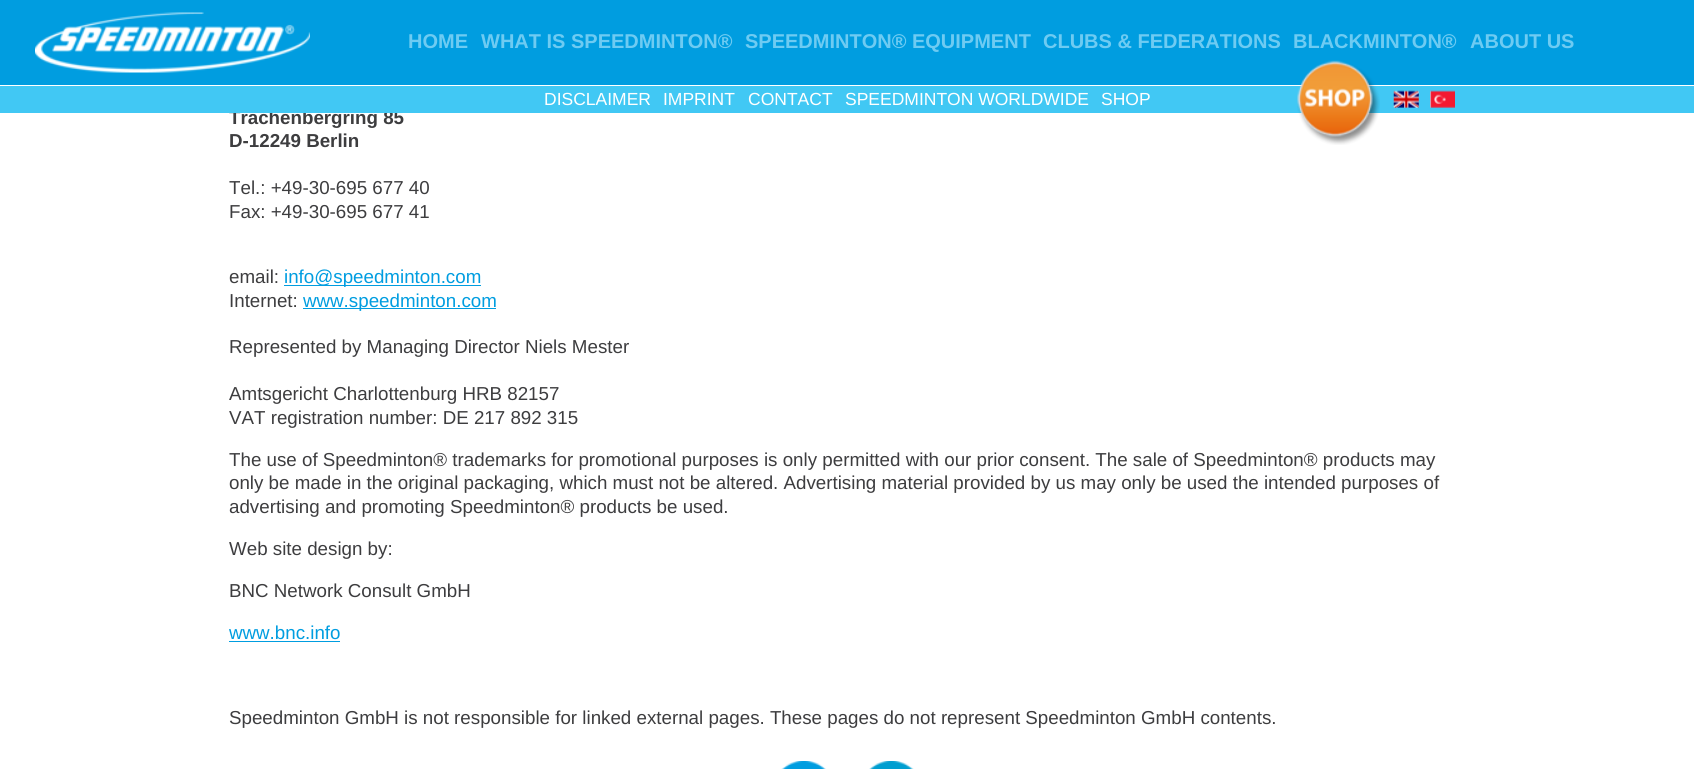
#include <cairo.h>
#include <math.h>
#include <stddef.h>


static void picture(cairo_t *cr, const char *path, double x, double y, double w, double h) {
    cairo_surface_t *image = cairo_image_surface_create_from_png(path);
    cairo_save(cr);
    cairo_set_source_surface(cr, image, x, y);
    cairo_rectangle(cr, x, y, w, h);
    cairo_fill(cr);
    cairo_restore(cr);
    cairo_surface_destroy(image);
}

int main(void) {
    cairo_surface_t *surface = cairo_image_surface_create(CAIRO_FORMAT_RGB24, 1694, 769);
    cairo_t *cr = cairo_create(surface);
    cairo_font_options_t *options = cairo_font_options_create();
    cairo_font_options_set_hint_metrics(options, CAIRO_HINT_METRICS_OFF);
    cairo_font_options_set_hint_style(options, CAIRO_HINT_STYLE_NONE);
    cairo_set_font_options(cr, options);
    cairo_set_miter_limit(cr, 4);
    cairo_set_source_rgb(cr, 1, 1, 1);
    cairo_paint(cr);
    cairo_set_source_rgb(cr, 0, 0.616, 0.878);
    cairo_rectangle(cr, 0, 0, 1694, 85);
    cairo_fill(cr);
    picture(cr, "img1.png", 35, 12, 275, 61);
    cairo_select_font_face(cr, "Liberation Sans", CAIRO_FONT_SLANT_NORMAL, CAIRO_FONT_WEIGHT_BOLD);
    cairo_set_font_size(cr, 20);
    cairo_set_source_rgb(cr, 0.431, 0.796, 0.949);
    cairo_move_to(cr, 408, 48);
    cairo_show_text(cr, "HOME");
    cairo_move_to(cr, 481, 48);
    cairo_show_text(cr, "WHAT IS SPEEDMINTON®");
    cairo_move_to(cr, 745, 48);
    cairo_show_text(cr, "SPEEDMINTON® EQUIPMENT");
    cairo_move_to(cr, 1043, 48);
    cairo_show_text(cr, "CLUBS & FEDERATIONS");
    cairo_move_to(cr, 1293, 48);
    cairo_show_text(cr, "BLACKMINTON®");
    cairo_move_to(cr, 1470, 48);
    cairo_show_text(cr, "ABOUT US");
    cairo_set_font_size(cr, 18.75);
    cairo_set_source_rgb(cr, 0.239, 0.239, 0.247);
    cairo_move_to(cr, 229, 124);
    cairo_show_text(cr, "Trachenbergring 85");
    cairo_set_source_rgb(cr, 0.255, 0.784, 0.957);
    cairo_rectangle(cr, 0, 86, 1694, 27);
    cairo_fill(cr);
    cairo_select_font_face(cr, "Liberation Sans", CAIRO_FONT_SLANT_NORMAL, CAIRO_FONT_WEIGHT_NORMAL);
    cairo_set_font_size(cr, 17.5);
    cairo_set_source_rgb(cr, 1, 1, 1);
    cairo_move_to(cr, 544, 105);
    cairo_show_text(cr, "DISCLAIMER");
    cairo_move_to(cr, 663, 105);
    cairo_show_text(cr, "IMPRINT");
    cairo_move_to(cr, 748, 105);
    cairo_show_text(cr, "CONTACT");
    cairo_move_to(cr, 845, 105);
    cairo_show_text(cr, "SPEEDMINTON WORLDWIDE");
    cairo_move_to(cr, 1101, 105);
    cairo_show_text(cr, "SHOP");
    picture(cr, "img2.png", 1297, 60, 83, 85);
    picture(cr, "img3.png", 1393, 90, 26, 18);
    picture(cr, "img4.png", 1430, 90, 25, 18);
    cairo_select_font_face(cr, "Liberation Sans", CAIRO_FONT_SLANT_NORMAL, CAIRO_FONT_WEIGHT_BOLD);
    cairo_set_font_size(cr, 18.75);
    cairo_set_source_rgb(cr, 0.239, 0.239, 0.247);
    cairo_move_to(cr, 229, 147);
    cairo_show_text(cr, "D-12249 Berlin");
    cairo_select_font_face(cr, "Liberation Sans", CAIRO_FONT_SLANT_NORMAL, CAIRO_FONT_WEIGHT_NORMAL);
    cairo_move_to(cr, 229, 194);
    cairo_show_text(cr, "Tel.: +49-30-695 677 40");
    cairo_move_to(cr, 229, 218);
    cairo_show_text(cr, "Fax: +49-30-695 677 41");
    cairo_move_to(cr, 229, 283);
    cairo_show_text(cr, "email:");
    cairo_set_source_rgb(cr, 0, 0.616, 0.878);
    cairo_rectangle(cr, 284, 285, 197, 1);
    cairo_fill(cr);
    cairo_move_to(cr, 284, 283);
    cairo_show_text(cr, "info@speedminton.com");
    cairo_set_source_rgb(cr, 0.239, 0.239, 0.247);
    cairo_move_to(cr, 229, 307);
    cairo_show_text(cr, "Internet:");
    cairo_set_source_rgb(cr, 0, 0.616, 0.878);
    cairo_rectangle(cr, 303, 308, 193, 1);
    cairo_fill(cr);
    cairo_move_to(cr, 303, 307);
    cairo_show_text(cr, "www.speedminton.com");
    cairo_set_source_rgb(cr, 0.239, 0.239, 0.247);
    cairo_move_to(cr, 229, 353);
    cairo_show_text(cr, "Represented by Managing Director Niels Mester");
    cairo_move_to(cr, 229, 400);
    cairo_show_text(cr, "Amtsgericht Charlottenburg HRB 82157");
    cairo_move_to(cr, 229, 424);
    cairo_show_text(cr, "VAT registration number: DE 217 892 315");
    cairo_move_to(cr, 229, 466);
    cairo_show_text(cr, "The use of Speedminton® trademarks for promotional purposes is only permitted with our prior consent. The sale of Speedminton® products may");
    cairo_move_to(cr, 229, 489);
    cairo_show_text(cr, "only be made in the original packaging, which must not be altered. Advertising material provided by us may only be used the intended purposes of");
    cairo_move_to(cr, 229, 513);
    cairo_show_text(cr, "advertising and promoting Speedminton® products be used.");
    cairo_move_to(cr, 229, 555);
    cairo_show_text(cr, "Web site design by:");
    cairo_move_to(cr, 229, 597);
    cairo_show_text(cr, "BNC Network Consult GmbH");
    cairo_set_source_rgb(cr, 0, 0.616, 0.878);
    cairo_move_to(cr, 229, 639);
    cairo_show_text(cr, "www.bnc.info");
    cairo_rectangle(cr, 229, 641, 111, 1);
    cairo_fill(cr);
    cairo_set_source_rgb(cr, 0.239, 0.239, 0.247);
    cairo_move_to(cr, 229, 724);
    cairo_show_text(cr, "Speedminton GmbH is not responsible for linked external pages. These pages do not represent Speedminton GmbH contents.");
    picture(cr, "img5.png", 781, 761, 45, 8);
    picture(cr, "img6.png", 869, 761, 45, 8);
    cairo_surface_write_to_png(surface, "page.png");
    cairo_font_options_destroy(options);
    cairo_destroy(cr);
    cairo_surface_destroy(surface);
    return 0;
}
